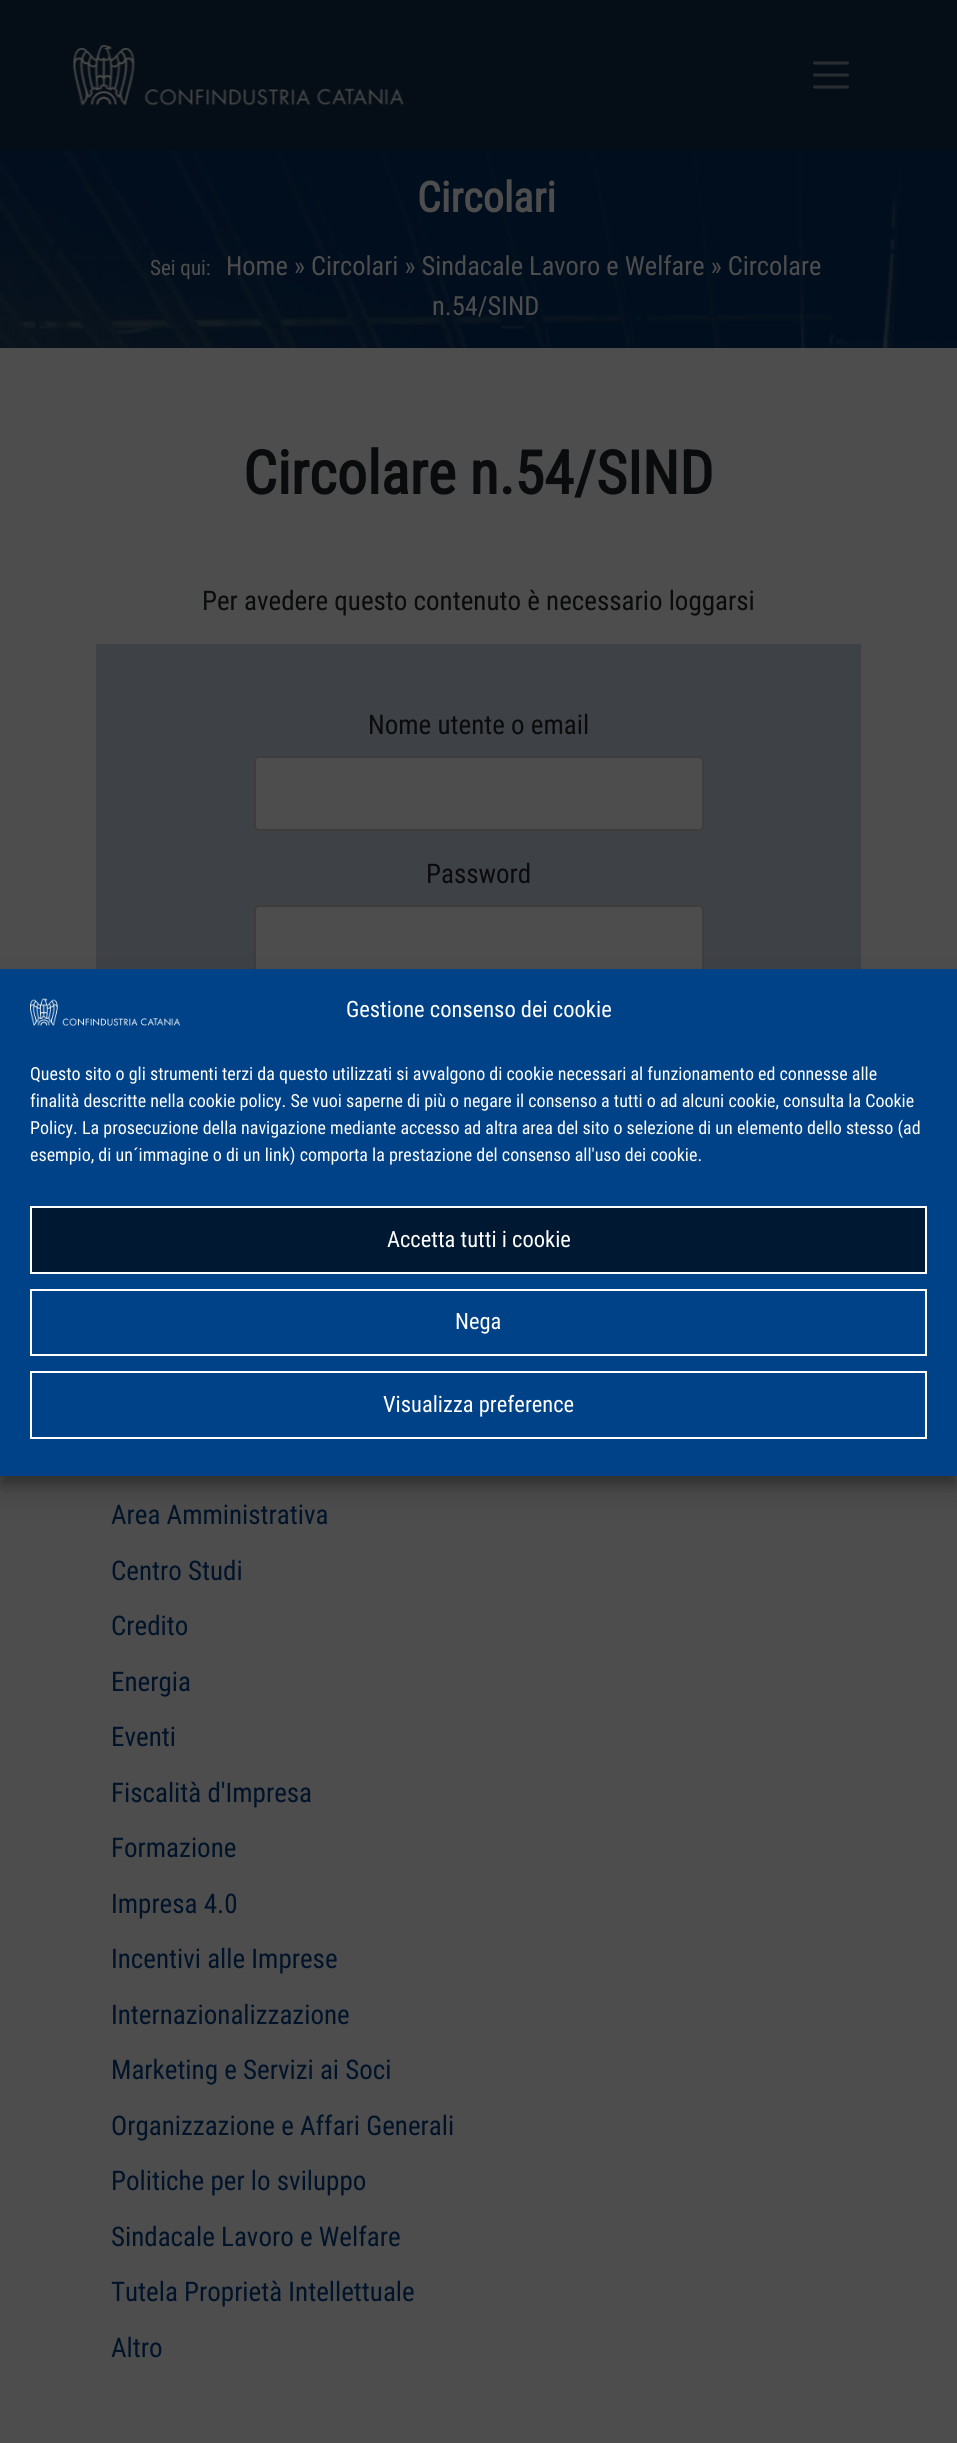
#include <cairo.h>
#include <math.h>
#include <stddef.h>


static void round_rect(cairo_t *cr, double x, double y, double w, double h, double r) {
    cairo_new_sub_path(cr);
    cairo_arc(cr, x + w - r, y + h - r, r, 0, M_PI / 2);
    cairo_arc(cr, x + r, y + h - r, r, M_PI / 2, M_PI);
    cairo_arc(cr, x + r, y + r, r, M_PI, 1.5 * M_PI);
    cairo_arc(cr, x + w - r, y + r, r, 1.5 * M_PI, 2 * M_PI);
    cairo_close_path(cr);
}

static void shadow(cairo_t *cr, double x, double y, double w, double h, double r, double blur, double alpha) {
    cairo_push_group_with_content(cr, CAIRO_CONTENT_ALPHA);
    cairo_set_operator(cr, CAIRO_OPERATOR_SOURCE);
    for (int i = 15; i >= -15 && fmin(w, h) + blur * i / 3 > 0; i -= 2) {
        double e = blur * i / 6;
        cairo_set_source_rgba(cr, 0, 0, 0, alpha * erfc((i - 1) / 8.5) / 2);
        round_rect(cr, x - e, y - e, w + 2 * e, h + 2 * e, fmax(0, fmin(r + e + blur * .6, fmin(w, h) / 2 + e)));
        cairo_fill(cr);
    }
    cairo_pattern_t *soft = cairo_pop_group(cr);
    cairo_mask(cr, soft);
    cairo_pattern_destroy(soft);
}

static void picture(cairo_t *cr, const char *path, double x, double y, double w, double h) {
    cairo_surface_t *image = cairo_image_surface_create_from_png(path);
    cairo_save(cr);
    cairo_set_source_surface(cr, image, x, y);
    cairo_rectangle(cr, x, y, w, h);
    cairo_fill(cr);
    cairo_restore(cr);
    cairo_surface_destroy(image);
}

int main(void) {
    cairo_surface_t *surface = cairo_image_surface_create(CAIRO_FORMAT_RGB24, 957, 2443);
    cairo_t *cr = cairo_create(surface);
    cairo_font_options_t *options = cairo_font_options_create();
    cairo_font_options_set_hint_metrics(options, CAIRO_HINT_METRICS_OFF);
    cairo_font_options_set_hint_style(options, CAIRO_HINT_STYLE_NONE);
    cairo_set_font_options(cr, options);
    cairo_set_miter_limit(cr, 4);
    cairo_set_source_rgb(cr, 0.302, 0.302, 0.302);
    cairo_paint(cr);
    cairo_set_source_rgb(cr, 0.02, 0.055, 0.086);
    cairo_rectangle(cr, 0, 0, 957, 150);
    cairo_fill(cr);
    picture(cr, "img1.png", 73, 45, 331, 61);
    cairo_new_path(cr);
    cairo_move_to(cr, 814.5, 63);
    cairo_line_to(cr, 847.5, 63);
    cairo_move_to(cr, 814.5, 75);
    cairo_line_to(cr, 847.5, 75);
    cairo_move_to(cr, 814.5, 87);
    cairo_line_to(cr, 847.5, 87);
    cairo_set_source_rgb(cr, 0.161, 0.176, 0.196);
    cairo_set_line_width(cr, 3);
    cairo_set_line_cap(cr, CAIRO_LINE_CAP_ROUND);
    cairo_stroke(cr);
    picture(cr, "img2.png", 0, 150, 957, 198);
    cairo_select_font_face(cr, "Roboto Condensed", CAIRO_FONT_SLANT_NORMAL, CAIRO_FONT_WEIGHT_BOLD);
    cairo_set_font_size(cr, 42);
    cairo_set_source_rgb(cr, 0.302, 0.302, 0.302);
    cairo_move_to(cr, 417, 212);
    cairo_show_text(cr, "Circolari");
    cairo_select_font_face(cr, "Roboto Condensed", CAIRO_FONT_SLANT_NORMAL, CAIRO_FONT_WEIGHT_NORMAL);
    cairo_set_font_size(cr, 21);
    cairo_move_to(cr, 150, 275);
    cairo_show_text(cr, "Sei qui:");
    cairo_set_font_size(cr, 26.4);
    cairo_move_to(cr, 226, 275);
    cairo_show_text(cr, "Home » Circolari » Sindacale Lavoro e Welfare » Circolare");
    cairo_move_to(cr, 432, 315);
    cairo_show_text(cr, "n.54/SIND");
    cairo_select_font_face(cr, "Roboto Condensed", CAIRO_FONT_SLANT_NORMAL, CAIRO_FONT_WEIGHT_BOLD);
    cairo_set_font_size(cr, 60);
    cairo_set_source_rgb(cr, 0.039, 0.043, 0.047);
    cairo_move_to(cr, 243, 494);
    cairo_show_text(cr, "Circolare n.54/SIND");
    cairo_select_font_face(cr, "Roboto Condensed", CAIRO_FONT_SLANT_NORMAL, CAIRO_FONT_WEIGHT_NORMAL);
    cairo_set_font_size(cr, 27);
    cairo_move_to(cr, 202, 610);
    cairo_show_text(cr, "Per avedere questo contenuto è necessario loggarsi");
    cairo_set_source_rgb(cr, 0.243, 0.255, 0.275);
    cairo_rectangle(cr, 96, 644, 765, 325);
    cairo_fill(cr);
    cairo_set_source_rgb(cr, 0.039, 0.043, 0.047);
    cairo_move_to(cr, 368, 734);
    cairo_show_text(cr, "Nome utente o email");
    cairo_set_source_rgb(cr, 0.302, 0.302, 0.302);
    round_rect(cr, 255, 757, 448, 73, 4);
    cairo_fill_preserve(cr);
    cairo_set_source_rgb(cr, 0.239, 0.239, 0.239);
    cairo_set_line_width(cr, 2);
    cairo_set_line_cap(cr, CAIRO_LINE_CAP_BUTT);
    cairo_stroke(cr);
    cairo_set_source_rgb(cr, 0.039, 0.043, 0.047);
    cairo_move_to(cr, 426, 883);
    cairo_show_text(cr, "Password");
    cairo_set_source_rgb(cr, 0.302, 0.302, 0.302);
    round_rect(cr, 255, 906, 448, 73, 4);
    cairo_fill_preserve(cr);
    cairo_set_source_rgb(cr, 0.239, 0.239, 0.239);
    cairo_stroke(cr);
    cairo_set_source_rgb(cr, 0, 0.078, 0.161);
    cairo_move_to(cr, 111, 1524);
    cairo_show_text(cr, "Area Amministrativa");
    cairo_move_to(cr, 111, 1580);
    cairo_show_text(cr, "Centro Studi");
    cairo_move_to(cr, 111, 1635);
    cairo_show_text(cr, "Credito");
    cairo_move_to(cr, 111, 1691);
    cairo_show_text(cr, "Energia");
    cairo_move_to(cr, 111, 1746);
    cairo_show_text(cr, "Eventi");
    cairo_move_to(cr, 111, 1802);
    cairo_show_text(cr, "Fiscalità d'Impresa");
    cairo_move_to(cr, 111, 1857);
    cairo_show_text(cr, "Formazione");
    cairo_move_to(cr, 111, 1913);
    cairo_show_text(cr, "Impresa 4.0");
    cairo_move_to(cr, 111, 1968);
    cairo_show_text(cr, "Incentivi alle Imprese");
    cairo_move_to(cr, 111, 2024);
    cairo_show_text(cr, "Internazionalizzazione");
    cairo_move_to(cr, 111, 2079);
    cairo_show_text(cr, "Marketing e Servizi ai Soci");
    cairo_move_to(cr, 111, 2135);
    cairo_show_text(cr, "Organizzazione e Affari Generali");
    cairo_move_to(cr, 111, 2190);
    cairo_show_text(cr, "Politiche per lo sviluppo");
    cairo_move_to(cr, 111, 2246);
    cairo_show_text(cr, "Sindacale Lavoro e Welfare");
    cairo_move_to(cr, 111, 2301);
    cairo_show_text(cr, "Tutela Proprietà Intellettuale");
    cairo_move_to(cr, 111, 2357);
    cairo_show_text(cr, "Altro");
    cairo_set_source_rgb(cr, 0, 0, 0);
    shadow(cr, 0, 978, 957, 507, 0, 4.5, 0.23);
    shadow(cr, 0, 984, 957, 507, 0, 15, 0.19);
    cairo_set_source_rgb(cr, 0, 0.259, 0.533);
    cairo_rectangle(cr, 0, 969, 957, 507);
    cairo_fill(cr);
    picture(cr, "img3.png", 30, 998, 150, 28);
    cairo_set_font_size(cr, 22.5);
    cairo_set_source_rgb(cr, 1, 1, 1);
    cairo_move_to(cr, 346, 1017);
    cairo_show_text(cr, "Gestione consenso dei cookie");
    cairo_set_font_size(cr, 18);
    cairo_move_to(cr, 30, 1080);
    cairo_show_text(cr, "Questo sito o gli strumenti terzi da questo utilizzati si avvalgono di cookie necessari al funzionamento ed connesse alle");
    cairo_move_to(cr, 30, 1107);
    cairo_show_text(cr, "finalità descritte nella cookie policy. Se vuoi saperne di più o negare il consenso a tutti o ad alcuni cookie, consulta la Cookie");
    cairo_move_to(cr, 30, 1134);
    cairo_show_text(cr, "Policy. La prosecuzione della navigazione mediante accesso ad altra area del sito o selezione di un elemento dello stesso (ad");
    cairo_move_to(cr, 30, 1161);
    cairo_show_text(cr, "esempio, di un´immagine o di un link) comporta la prestazione del consenso all'uso dei cookie.");
    cairo_set_source_rgb(cr, 0, 0.094, 0.192);
    cairo_rectangle(cr, 31, 1207, 895, 66);
    cairo_fill_preserve(cr);
    cairo_set_source_rgb(cr, 1, 1, 1);
    cairo_stroke(cr);
    cairo_set_font_size(cr, 22.5);
    cairo_move_to(cr, 387, 1247);
    cairo_show_text(cr, "Accetta tutti i cookie");
    cairo_rectangle(cr, 31, 1290, 895, 65);
    cairo_stroke(cr);
    cairo_move_to(cr, 455, 1329);
    cairo_show_text(cr, "Nega");
    cairo_rectangle(cr, 31, 1372, 895, 66);
    cairo_stroke(cr);
    cairo_move_to(cr, 383, 1412);
    cairo_show_text(cr, "Visualizza preference");
    cairo_surface_write_to_png(surface, "page.png");
    cairo_font_options_destroy(options);
    cairo_destroy(cr);
    cairo_surface_destroy(surface);
    return 0;
}
